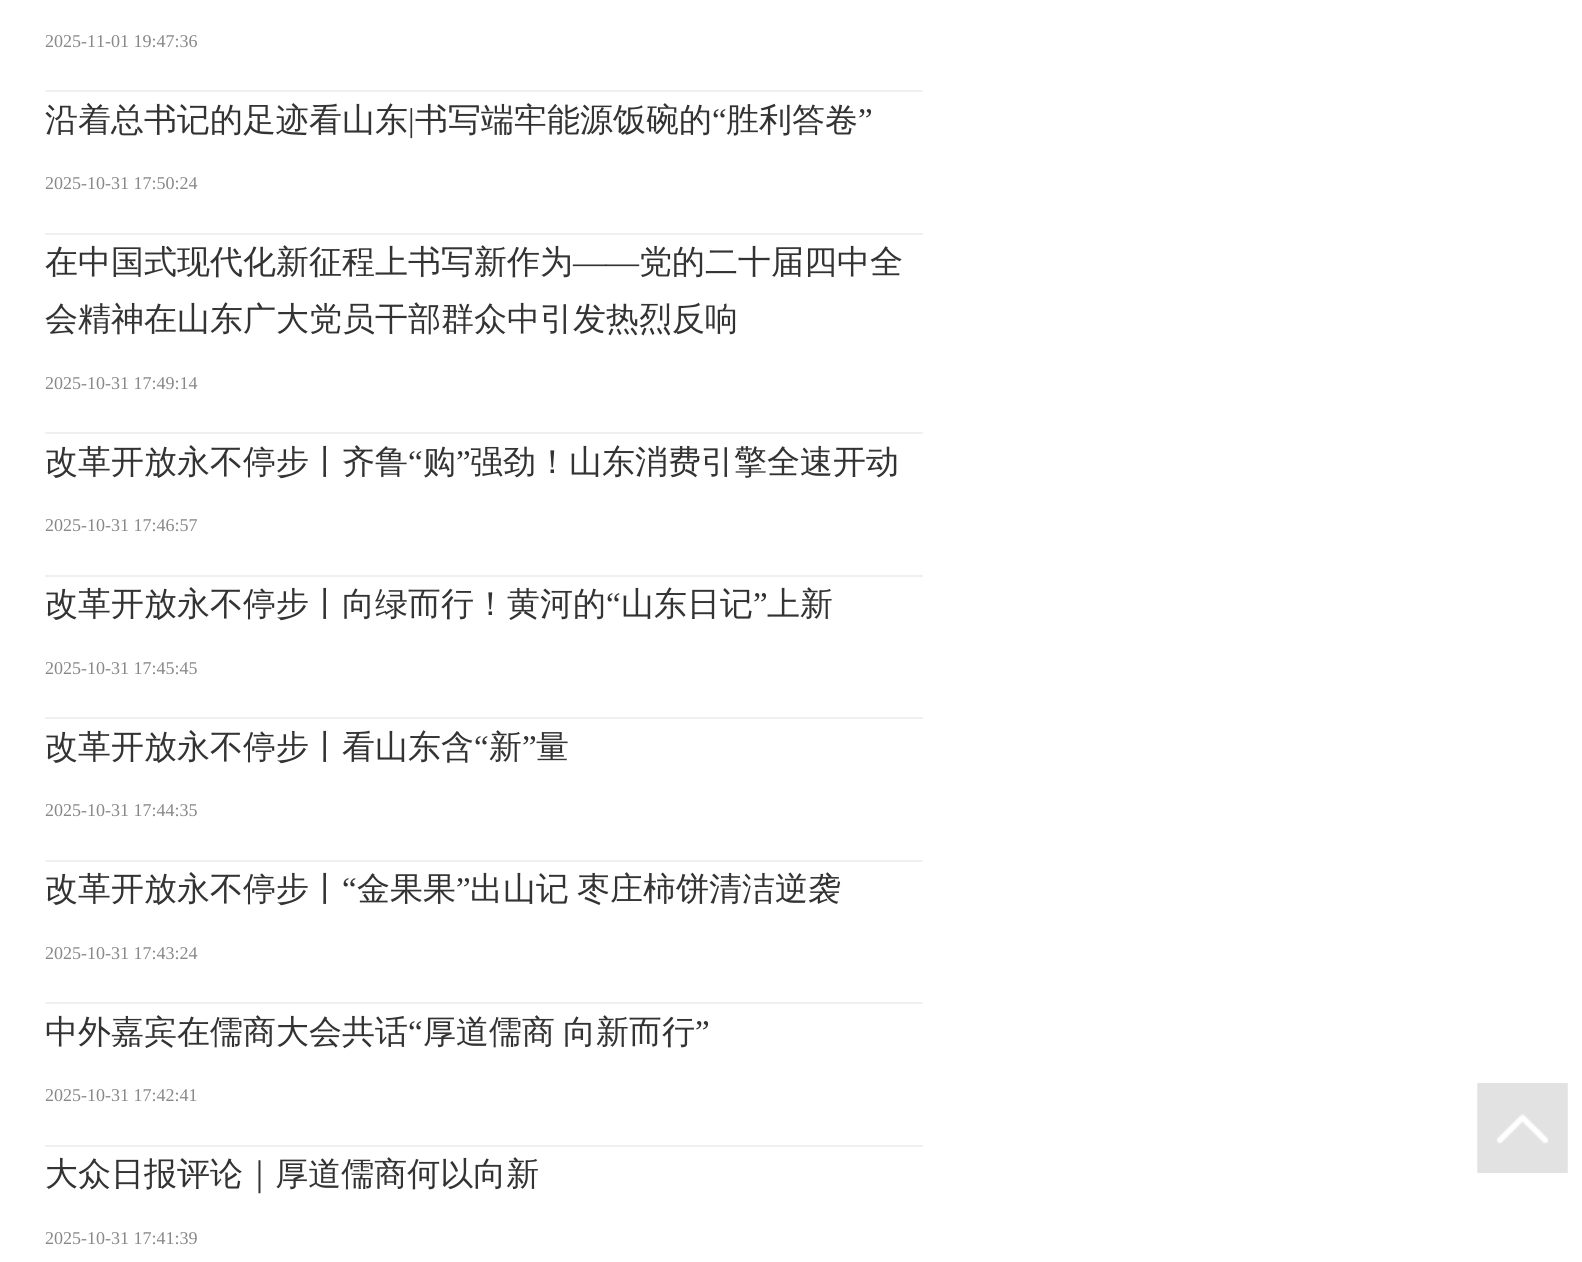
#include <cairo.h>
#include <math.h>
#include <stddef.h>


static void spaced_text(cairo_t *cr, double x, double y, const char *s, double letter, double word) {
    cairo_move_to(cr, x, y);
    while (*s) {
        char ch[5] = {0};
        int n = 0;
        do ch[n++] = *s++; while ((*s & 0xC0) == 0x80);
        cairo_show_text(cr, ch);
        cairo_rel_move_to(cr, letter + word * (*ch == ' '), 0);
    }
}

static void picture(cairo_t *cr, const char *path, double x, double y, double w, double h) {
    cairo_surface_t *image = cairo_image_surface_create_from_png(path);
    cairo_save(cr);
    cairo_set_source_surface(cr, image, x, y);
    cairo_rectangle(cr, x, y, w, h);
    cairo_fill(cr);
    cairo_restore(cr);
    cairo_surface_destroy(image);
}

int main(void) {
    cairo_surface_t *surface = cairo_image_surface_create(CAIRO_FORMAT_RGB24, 1582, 1262);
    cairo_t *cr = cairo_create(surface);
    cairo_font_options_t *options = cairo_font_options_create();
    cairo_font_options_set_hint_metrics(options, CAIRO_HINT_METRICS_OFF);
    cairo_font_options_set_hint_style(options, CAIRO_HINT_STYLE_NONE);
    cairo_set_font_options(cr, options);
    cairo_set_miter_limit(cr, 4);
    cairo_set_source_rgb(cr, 1, 1, 1);
    cairo_paint(cr);
    cairo_set_source_rgb(cr, 0.941, 0.941, 0.941);
    cairo_rectangle(cr, 45, 90, 878, 2);
    cairo_fill(cr);
    cairo_select_font_face(cr, "Liberation Serif", CAIRO_FONT_SLANT_NORMAL, CAIRO_FONT_WEIGHT_NORMAL);
    cairo_set_font_size(cr, 18);
    cairo_set_source_rgb(cr, 0.533, 0.533, 0.533);
    cairo_move_to(cr, 45, 47);
    cairo_show_text(cr, "2025-11-01 19:47:36");
    cairo_set_source_rgb(cr, 0.941, 0.941, 0.941);
    cairo_rectangle(cr, 45, 233, 878, 2);
    cairo_fill(cr);
    cairo_select_font_face(cr, "WenQuanYi Zen Hei Medium", CAIRO_FONT_SLANT_NORMAL, CAIRO_FONT_WEIGHT_NORMAL);
    cairo_set_font_size(cr, 33);
    cairo_set_source_rgb(cr, 0.2, 0.2, 0.2);
    cairo_move_to(cr, 45, 131);
    cairo_show_text(cr, "沿着总书记的足迹看山东");
    cairo_select_font_face(cr, "Liberation Serif", CAIRO_FONT_SLANT_NORMAL, CAIRO_FONT_WEIGHT_NORMAL);
    cairo_move_to(cr, 408, 131);
    cairo_show_text(cr, "|");
    cairo_select_font_face(cr, "WenQuanYi Zen Hei Medium", CAIRO_FONT_SLANT_NORMAL, CAIRO_FONT_WEIGHT_NORMAL);
    cairo_move_to(cr, 415, 131);
    cairo_show_text(cr, "书写端牢能源饭碗的");
    cairo_select_font_face(cr, "Liberation Serif", CAIRO_FONT_SLANT_NORMAL, CAIRO_FONT_WEIGHT_NORMAL);
    cairo_move_to(cr, 712, 131);
    cairo_show_text(cr, "“");
    cairo_select_font_face(cr, "WenQuanYi Zen Hei Medium", CAIRO_FONT_SLANT_NORMAL, CAIRO_FONT_WEIGHT_NORMAL);
    cairo_move_to(cr, 726, 131);
    cairo_show_text(cr, "胜利答卷");
    cairo_select_font_face(cr, "Liberation Serif", CAIRO_FONT_SLANT_NORMAL, CAIRO_FONT_WEIGHT_NORMAL);
    cairo_move_to(cr, 858, 131);
    cairo_show_text(cr, "”");
    cairo_set_font_size(cr, 18);
    cairo_set_source_rgb(cr, 0.533, 0.533, 0.533);
    cairo_move_to(cr, 45, 189);
    cairo_show_text(cr, "2025-10-31 17:50:24");
    cairo_set_source_rgb(cr, 0.941, 0.941, 0.941);
    cairo_rectangle(cr, 45, 432, 878, 2);
    cairo_fill(cr);
    cairo_select_font_face(cr, "WenQuanYi Zen Hei Medium", CAIRO_FONT_SLANT_NORMAL, CAIRO_FONT_WEIGHT_NORMAL);
    cairo_set_font_size(cr, 33);
    cairo_set_source_rgb(cr, 0.2, 0.2, 0.2);
    cairo_move_to(cr, 45, 273);
    cairo_show_text(cr, "在中国式现代化新征程上书写新作为");
    cairo_select_font_face(cr, "Liberation Serif", CAIRO_FONT_SLANT_NORMAL, CAIRO_FONT_WEIGHT_NORMAL);
    cairo_move_to(cr, 573, 273);
    cairo_show_text(cr, "——");
    cairo_select_font_face(cr, "WenQuanYi Zen Hei Medium", CAIRO_FONT_SLANT_NORMAL, CAIRO_FONT_WEIGHT_NORMAL);
    cairo_move_to(cr, 639, 273);
    cairo_show_text(cr, "党的二十届四中全");
    cairo_move_to(cr, 45, 330);
    cairo_show_text(cr, "会精神在山东广大党员干部群众中引发热烈反响");
    cairo_select_font_face(cr, "Liberation Serif", CAIRO_FONT_SLANT_NORMAL, CAIRO_FONT_WEIGHT_NORMAL);
    cairo_set_font_size(cr, 18);
    cairo_set_source_rgb(cr, 0.533, 0.533, 0.533);
    cairo_move_to(cr, 45, 389);
    cairo_show_text(cr, "2025-10-31 17:49:14");
    cairo_set_source_rgb(cr, 0.941, 0.941, 0.941);
    cairo_rectangle(cr, 45, 575, 878, 2);
    cairo_fill(cr);
    cairo_select_font_face(cr, "WenQuanYi Zen Hei Medium", CAIRO_FONT_SLANT_NORMAL, CAIRO_FONT_WEIGHT_NORMAL);
    cairo_set_font_size(cr, 33);
    cairo_set_source_rgb(cr, 0.2, 0.2, 0.2);
    cairo_move_to(cr, 45, 473);
    cairo_show_text(cr, "改革开放永不停步丨齐鲁");
    cairo_select_font_face(cr, "Liberation Serif", CAIRO_FONT_SLANT_NORMAL, CAIRO_FONT_WEIGHT_NORMAL);
    cairo_move_to(cr, 408, 473);
    cairo_show_text(cr, "“");
    cairo_select_font_face(cr, "WenQuanYi Zen Hei Medium", CAIRO_FONT_SLANT_NORMAL, CAIRO_FONT_WEIGHT_NORMAL);
    cairo_move_to(cr, 423, 473);
    cairo_show_text(cr, "购");
    cairo_select_font_face(cr, "Liberation Serif", CAIRO_FONT_SLANT_NORMAL, CAIRO_FONT_WEIGHT_NORMAL);
    cairo_move_to(cr, 456, 473);
    cairo_show_text(cr, "”");
    cairo_select_font_face(cr, "WenQuanYi Zen Hei Medium", CAIRO_FONT_SLANT_NORMAL, CAIRO_FONT_WEIGHT_NORMAL);
    cairo_move_to(cr, 470, 473);
    cairo_show_text(cr, "强劲！山东消费引擎全速开动");
    cairo_select_font_face(cr, "Liberation Serif", CAIRO_FONT_SLANT_NORMAL, CAIRO_FONT_WEIGHT_NORMAL);
    cairo_set_font_size(cr, 18);
    cairo_set_source_rgb(cr, 0.533, 0.533, 0.533);
    cairo_move_to(cr, 45, 531);
    cairo_show_text(cr, "2025-10-31 17:46:57");
    cairo_set_source_rgb(cr, 0.941, 0.941, 0.941);
    cairo_rectangle(cr, 45, 717, 878, 2);
    cairo_fill(cr);
    cairo_select_font_face(cr, "WenQuanYi Zen Hei Medium", CAIRO_FONT_SLANT_NORMAL, CAIRO_FONT_WEIGHT_NORMAL);
    cairo_set_font_size(cr, 33);
    cairo_set_source_rgb(cr, 0.2, 0.2, 0.2);
    cairo_move_to(cr, 45, 615);
    cairo_show_text(cr, "改革开放永不停步丨向绿而行！黄河的");
    cairo_select_font_face(cr, "Liberation Serif", CAIRO_FONT_SLANT_NORMAL, CAIRO_FONT_WEIGHT_NORMAL);
    cairo_move_to(cr, 606, 615);
    cairo_show_text(cr, "“");
    cairo_select_font_face(cr, "WenQuanYi Zen Hei Medium", CAIRO_FONT_SLANT_NORMAL, CAIRO_FONT_WEIGHT_NORMAL);
    cairo_move_to(cr, 621, 615);
    cairo_show_text(cr, "山东日记");
    cairo_select_font_face(cr, "Liberation Serif", CAIRO_FONT_SLANT_NORMAL, CAIRO_FONT_WEIGHT_NORMAL);
    cairo_move_to(cr, 753, 615);
    cairo_show_text(cr, "”");
    cairo_select_font_face(cr, "WenQuanYi Zen Hei Medium", CAIRO_FONT_SLANT_NORMAL, CAIRO_FONT_WEIGHT_NORMAL);
    cairo_move_to(cr, 767, 615);
    cairo_show_text(cr, "上新");
    cairo_select_font_face(cr, "Liberation Serif", CAIRO_FONT_SLANT_NORMAL, CAIRO_FONT_WEIGHT_NORMAL);
    cairo_set_font_size(cr, 18);
    cairo_set_source_rgb(cr, 0.533, 0.533, 0.533);
    cairo_move_to(cr, 45, 674);
    cairo_show_text(cr, "2025-10-31 17:45:45");
    cairo_set_source_rgb(cr, 0.941, 0.941, 0.941);
    cairo_rectangle(cr, 45, 860, 878, 2);
    cairo_fill(cr);
    cairo_select_font_face(cr, "WenQuanYi Zen Hei Medium", CAIRO_FONT_SLANT_NORMAL, CAIRO_FONT_WEIGHT_NORMAL);
    cairo_set_font_size(cr, 33);
    cairo_set_source_rgb(cr, 0.2, 0.2, 0.2);
    cairo_move_to(cr, 45, 758);
    cairo_show_text(cr, "改革开放永不停步丨看山东含");
    cairo_select_font_face(cr, "Liberation Serif", CAIRO_FONT_SLANT_NORMAL, CAIRO_FONT_WEIGHT_NORMAL);
    cairo_move_to(cr, 474, 758);
    cairo_show_text(cr, "“");
    cairo_select_font_face(cr, "WenQuanYi Zen Hei Medium", CAIRO_FONT_SLANT_NORMAL, CAIRO_FONT_WEIGHT_NORMAL);
    cairo_move_to(cr, 489, 758);
    cairo_show_text(cr, "新");
    cairo_select_font_face(cr, "Liberation Serif", CAIRO_FONT_SLANT_NORMAL, CAIRO_FONT_WEIGHT_NORMAL);
    cairo_move_to(cr, 522, 758);
    cairo_show_text(cr, "”");
    cairo_select_font_face(cr, "WenQuanYi Zen Hei Medium", CAIRO_FONT_SLANT_NORMAL, CAIRO_FONT_WEIGHT_NORMAL);
    cairo_move_to(cr, 536, 758);
    cairo_show_text(cr, "量");
    cairo_select_font_face(cr, "Liberation Serif", CAIRO_FONT_SLANT_NORMAL, CAIRO_FONT_WEIGHT_NORMAL);
    cairo_set_font_size(cr, 18);
    cairo_set_source_rgb(cr, 0.533, 0.533, 0.533);
    cairo_move_to(cr, 45, 816);
    cairo_show_text(cr, "2025-10-31 17:44:35");
    cairo_set_source_rgb(cr, 0.941, 0.941, 0.941);
    cairo_rectangle(cr, 45, 1002, 878, 2);
    cairo_fill(cr);
    cairo_select_font_face(cr, "WenQuanYi Zen Hei Medium", CAIRO_FONT_SLANT_NORMAL, CAIRO_FONT_WEIGHT_NORMAL);
    cairo_set_font_size(cr, 33);
    cairo_set_source_rgb(cr, 0.2, 0.2, 0.2);
    cairo_move_to(cr, 45, 900);
    cairo_show_text(cr, "改革开放永不停步丨");
    cairo_select_font_face(cr, "Liberation Serif", CAIRO_FONT_SLANT_NORMAL, CAIRO_FONT_WEIGHT_NORMAL);
    cairo_move_to(cr, 342, 900);
    cairo_show_text(cr, "“");
    cairo_select_font_face(cr, "WenQuanYi Zen Hei Medium", CAIRO_FONT_SLANT_NORMAL, CAIRO_FONT_WEIGHT_NORMAL);
    cairo_move_to(cr, 357, 900);
    cairo_show_text(cr, "金果果");
    cairo_select_font_face(cr, "Liberation Serif", CAIRO_FONT_SLANT_NORMAL, CAIRO_FONT_WEIGHT_NORMAL);
    cairo_move_to(cr, 456, 900);
    cairo_show_text(cr, "”");
    cairo_select_font_face(cr, "WenQuanYi Zen Hei Medium", CAIRO_FONT_SLANT_NORMAL, CAIRO_FONT_WEIGHT_NORMAL);
    spaced_text(cr, 470, 900, "出山记 枣庄柿饼清洁逆袭", 0, -2);
    cairo_select_font_face(cr, "Liberation Serif", CAIRO_FONT_SLANT_NORMAL, CAIRO_FONT_WEIGHT_NORMAL);
    cairo_set_font_size(cr, 18);
    cairo_set_source_rgb(cr, 0.533, 0.533, 0.533);
    cairo_move_to(cr, 45, 959);
    cairo_show_text(cr, "2025-10-31 17:43:24");
    cairo_set_source_rgb(cr, 0.941, 0.941, 0.941);
    cairo_rectangle(cr, 45, 1145, 878, 2);
    cairo_fill(cr);
    cairo_select_font_face(cr, "WenQuanYi Zen Hei Medium", CAIRO_FONT_SLANT_NORMAL, CAIRO_FONT_WEIGHT_NORMAL);
    cairo_set_font_size(cr, 33);
    cairo_set_source_rgb(cr, 0.2, 0.2, 0.2);
    cairo_move_to(cr, 45, 1043);
    cairo_show_text(cr, "中外嘉宾在儒商大会共话");
    cairo_select_font_face(cr, "Liberation Serif", CAIRO_FONT_SLANT_NORMAL, CAIRO_FONT_WEIGHT_NORMAL);
    cairo_move_to(cr, 408, 1043);
    cairo_show_text(cr, "“");
    cairo_select_font_face(cr, "WenQuanYi Zen Hei Medium", CAIRO_FONT_SLANT_NORMAL, CAIRO_FONT_WEIGHT_NORMAL);
    spaced_text(cr, 423, 1043, "厚道儒商 向新而行", 0, -2);
    cairo_select_font_face(cr, "Liberation Serif", CAIRO_FONT_SLANT_NORMAL, CAIRO_FONT_WEIGHT_NORMAL);
    cairo_move_to(cr, 695, 1043);
    cairo_show_text(cr, "”");
    cairo_set_font_size(cr, 18);
    cairo_set_source_rgb(cr, 0.533, 0.533, 0.533);
    cairo_move_to(cr, 45, 1101);
    cairo_show_text(cr, "2025-10-31 17:42:41");
    cairo_select_font_face(cr, "WenQuanYi Zen Hei Medium", CAIRO_FONT_SLANT_NORMAL, CAIRO_FONT_WEIGHT_NORMAL);
    cairo_set_font_size(cr, 33);
    cairo_set_source_rgb(cr, 0.2, 0.2, 0.2);
    cairo_move_to(cr, 45, 1185);
    cairo_show_text(cr, "大众日报评论｜厚道儒商何以向新");
    cairo_select_font_face(cr, "Liberation Serif", CAIRO_FONT_SLANT_NORMAL, CAIRO_FONT_WEIGHT_NORMAL);
    cairo_set_font_size(cr, 18);
    cairo_set_source_rgb(cr, 0.533, 0.533, 0.533);
    cairo_move_to(cr, 45, 1244);
    cairo_show_text(cr, "2025-10-31 17:41:39");
    picture(cr, "img1.png", 1477, 1083, 91, 90);
    picture(cr, "img2.png", 1477, 1083, 91, 90);
    cairo_surface_write_to_png(surface, "page.png");
    cairo_font_options_destroy(options);
    cairo_destroy(cr);
    cairo_surface_destroy(surface);
    return 0;
}
